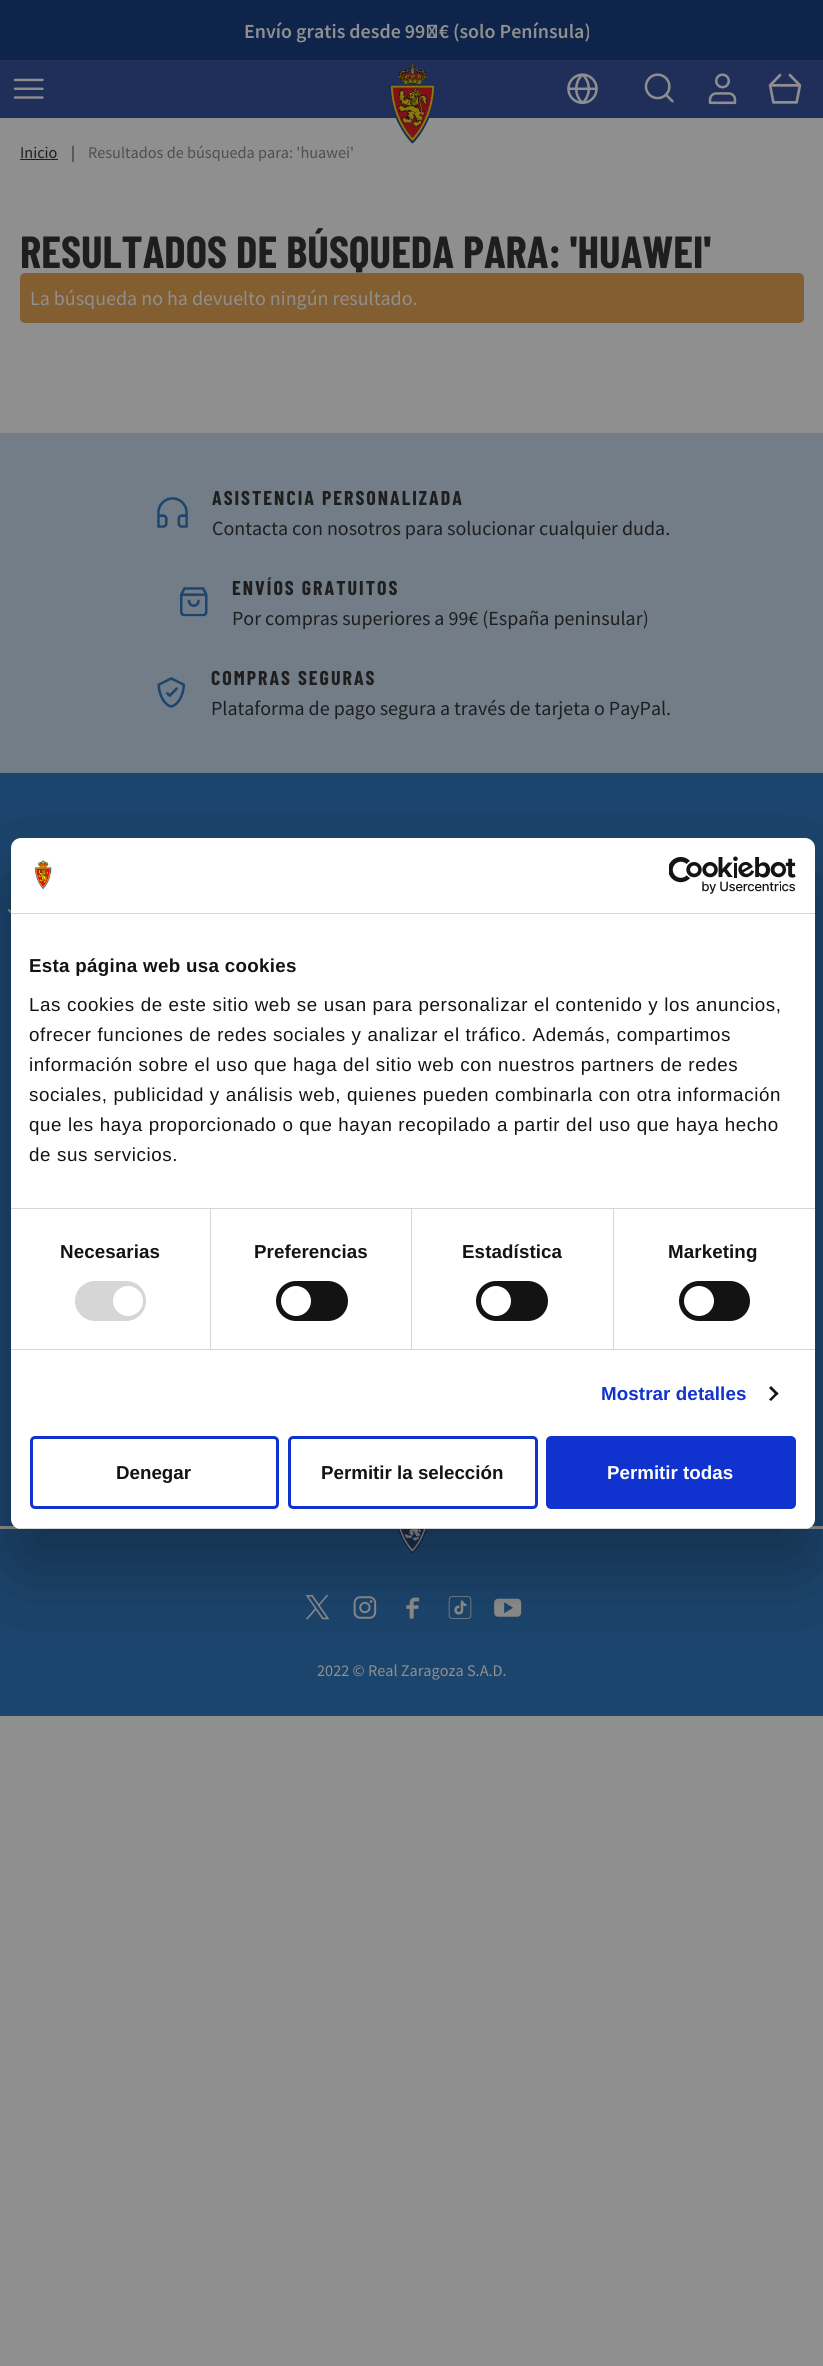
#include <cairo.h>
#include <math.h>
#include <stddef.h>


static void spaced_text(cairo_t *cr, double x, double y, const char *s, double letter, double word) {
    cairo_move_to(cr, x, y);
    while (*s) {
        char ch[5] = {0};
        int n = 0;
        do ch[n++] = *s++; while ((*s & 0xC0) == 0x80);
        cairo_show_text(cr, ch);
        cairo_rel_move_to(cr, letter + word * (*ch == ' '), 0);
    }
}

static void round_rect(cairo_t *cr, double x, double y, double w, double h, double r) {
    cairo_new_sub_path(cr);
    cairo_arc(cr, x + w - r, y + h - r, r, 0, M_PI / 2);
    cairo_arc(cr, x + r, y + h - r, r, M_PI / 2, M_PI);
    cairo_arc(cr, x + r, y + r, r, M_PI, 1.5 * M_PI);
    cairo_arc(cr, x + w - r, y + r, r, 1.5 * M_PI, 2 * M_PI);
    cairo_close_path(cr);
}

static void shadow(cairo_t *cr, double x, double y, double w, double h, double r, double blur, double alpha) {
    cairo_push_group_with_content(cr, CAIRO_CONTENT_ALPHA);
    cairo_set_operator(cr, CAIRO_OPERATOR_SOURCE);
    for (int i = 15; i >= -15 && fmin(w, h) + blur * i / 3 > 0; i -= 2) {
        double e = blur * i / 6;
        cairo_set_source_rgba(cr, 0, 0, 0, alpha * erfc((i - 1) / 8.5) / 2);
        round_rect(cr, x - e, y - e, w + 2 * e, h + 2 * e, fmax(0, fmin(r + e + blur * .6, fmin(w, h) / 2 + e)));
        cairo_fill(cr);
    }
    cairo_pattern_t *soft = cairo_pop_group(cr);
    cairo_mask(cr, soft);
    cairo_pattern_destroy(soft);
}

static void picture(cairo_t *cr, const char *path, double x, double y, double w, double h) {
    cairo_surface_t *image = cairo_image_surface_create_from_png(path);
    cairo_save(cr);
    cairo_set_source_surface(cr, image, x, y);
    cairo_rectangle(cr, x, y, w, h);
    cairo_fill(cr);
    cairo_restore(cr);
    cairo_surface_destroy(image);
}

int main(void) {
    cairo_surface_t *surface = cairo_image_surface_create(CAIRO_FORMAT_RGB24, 823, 2366);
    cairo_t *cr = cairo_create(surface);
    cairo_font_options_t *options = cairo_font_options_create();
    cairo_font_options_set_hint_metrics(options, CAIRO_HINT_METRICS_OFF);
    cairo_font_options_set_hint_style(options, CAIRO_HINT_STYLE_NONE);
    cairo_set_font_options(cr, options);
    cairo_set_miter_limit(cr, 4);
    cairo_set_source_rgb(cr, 0.561, 0.561, 0.561);
    cairo_paint(cr);
    cairo_set_source_rgb(cr, 0.059, 0.141, 0.294);
    cairo_rectangle(cr, 0, 0, 823, 60);
    cairo_fill(cr);
    cairo_select_font_face(cr, "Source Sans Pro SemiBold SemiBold", CAIRO_FONT_SLANT_NORMAL, CAIRO_FONT_WEIGHT_NORMAL);
    cairo_set_font_size(cr, 20);
    cairo_set_source_rgb(cr, 0.561, 0.561, 0.561);
    cairo_move_to(cr, 244, 38);
    cairo_show_text(cr, "Envío gratis desde 99 € (solo Península)");
    cairo_set_source_rgb(cr, 0.125, 0.18, 0.353);
    cairo_rectangle(cr, 0, 60, 823, 58);
    cairo_fill(cr);
    picture(cr, "img1.png", 13, 78, 31, 21);
    picture(cr, "img2.png", 389, 64, 47, 80);
    picture(cr, "img3.png", 567, 73, 31, 32);
    picture(cr, "img4.png", 644, 73, 30, 30);
    picture(cr, "img5.png", 708, 73, 29, 32);
    picture(cr, "img6.png", 768, 73, 34, 31);
    cairo_select_font_face(cr, "Source Sans Pro", CAIRO_FONT_SLANT_NORMAL, CAIRO_FONT_WEIGHT_NORMAL);
    cairo_set_font_size(cr, 16.25);
    cairo_set_source_rgb(cr, 0.118, 0.118, 0.118);
    cairo_move_to(cr, 20, 158);
    cairo_show_text(cr, "Inicio");
    cairo_rectangle(cr, 20, 159, 38, 1);
    cairo_fill(cr);
    cairo_move_to(cr, 71, 158);
    cairo_show_text(cr, "|");
    cairo_set_source_rgb(cr, 0.31, 0.31, 0.31);
    cairo_move_to(cr, 88, 158);
    cairo_show_text(cr, "Resultados de búsqueda para: 'huawei'");
    cairo_select_font_face(cr, "Barlow Condensed", CAIRO_FONT_SLANT_NORMAL, CAIRO_FONT_WEIGHT_BOLD);
    cairo_set_font_size(cr, 45);
    cairo_set_source_rgb(cr, 0.118, 0.118, 0.118);
    cairo_move_to(cr, 20, 268);
    cairo_show_text(cr, "RESULTADOS DE BÚSQUEDA PARA: 'HUAWEI'");
    cairo_set_source_rgb(cr, 0.51, 0.369, 0.192);
    round_rect(cr, 20, 273, 784, 50, 5);
    cairo_fill(cr);
    cairo_select_font_face(cr, "Source Sans Pro", CAIRO_FONT_SLANT_NORMAL, CAIRO_FONT_WEIGHT_NORMAL);
    cairo_set_font_size(cr, 20);
    cairo_set_source_rgb(cr, 0.561, 0.561, 0.561);
    cairo_move_to(cr, 30, 305);
    cairo_show_text(cr, "La búsqueda no ha devuelto ningún resultado.");
    cairo_set_source_rgb(cr, 0.447, 0.49, 0.529);
    cairo_rectangle(cr, 0, 433, 823, 340);
    cairo_fill(cr);
    picture(cr, "img7.png", 157, 497, 31, 31);
    cairo_select_font_face(cr, "Barlow Condensed", CAIRO_FONT_SLANT_NORMAL, CAIRO_FONT_WEIGHT_BOLD);
    cairo_set_source_rgb(cr, 0.118, 0.118, 0.118);
    spaced_text(cr, 212, 505, "ASISTENCIA PERSONALIZADA", 2, 0);
    cairo_select_font_face(cr, "Source Sans Pro", CAIRO_FONT_SLANT_NORMAL, CAIRO_FONT_WEIGHT_NORMAL);
    cairo_move_to(cr, 212, 535);
    cairo_show_text(cr, "Contacta con nosotros para solucionar cualquier duda.");
    picture(cr, "img8.png", 180, 587, 28, 30);
    cairo_select_font_face(cr, "Barlow Condensed", CAIRO_FONT_SLANT_NORMAL, CAIRO_FONT_WEIGHT_BOLD);
    spaced_text(cr, 232, 595, "ENVÍOS GRATUITOS", 2, 0);
    cairo_select_font_face(cr, "Source Sans Pro", CAIRO_FONT_SLANT_NORMAL, CAIRO_FONT_WEIGHT_NORMAL);
    cairo_move_to(cr, 232, 625);
    cairo_show_text(cr, "Por compras superiores a 99€ (España peninsular)");
    picture(cr, "img9.png", 157, 677, 28, 31);
    cairo_select_font_face(cr, "Barlow Condensed", CAIRO_FONT_SLANT_NORMAL, CAIRO_FONT_WEIGHT_BOLD);
    spaced_text(cr, 211, 685, "COMPRAS SEGURAS", 2, 0);
    cairo_select_font_face(cr, "Source Sans Pro", CAIRO_FONT_SLANT_NORMAL, CAIRO_FONT_WEIGHT_NORMAL);
    cairo_move_to(cr, 211, 715);
    cairo_show_text(cr, "Plataforma de pago segura a través de tarjeta o PayPal.");
    cairo_set_source_rgb(cr, 0.11, 0.271, 0.427);
    cairo_rectangle(cr, 0, 773, 823, 943);
    cairo_fill(cr);
    picture(cr, "img10.png", 7, 909, 4, 5);
    cairo_set_source_rgb(cr, 0.561, 0.561, 0.561);
    cairo_rectangle(cr, 0, 1526, 823, 3);
    cairo_fill(cr);
    picture(cr, "img11.png", 398, 1529, 29, 25);
    picture(cr, "img12.png", 305, 1595, 25, 25);
    picture(cr, "img13.png", 353, 1596, 24, 23);
    picture(cr, "img14.png", 406, 1597, 14, 22);
    picture(cr, "img15.png", 448, 1596, 24, 23);
    picture(cr, "img16.png", 494, 1598, 28, 19);
    cairo_set_font_size(cr, 16.25);
    cairo_move_to(cr, 317, 1676);
    cairo_show_text(cr, "2022 © Real Zaragoza S.A.D.");
    cairo_set_source_rgb(cr, 0, 0, 0);
    shadow(cr, 11, 878, 804, 691, 10, 42.5, 0.3);
    cairo_set_source_rgb(cr, 1, 1, 1);
    round_rect(cr, 11, 838, 804, 691, 10);
    cairo_fill(cr);
    cairo_set_source_rgb(cr, 0.839, 0.839, 0.839);
    cairo_rectangle(cr, 11, 913, 804, 1);
    cairo_fill(cr);
    picture(cr, "img17.png", 34, 860, 18, 29);
    picture(cr, "img18.png", 669, 856, 127, 38);
    cairo_rectangle(cr, 11, 1208, 804, 1);
    cairo_fill(cr);
    cairo_select_font_face(cr, "Liberation Sans", CAIRO_FONT_SLANT_NORMAL, CAIRO_FONT_WEIGHT_BOLD);
    cairo_set_font_size(cr, 18.75);
    cairo_set_source_rgb(cr, 0.078, 0.078, 0.078);
    spaced_text(cr, 29, 972, "Esta página web usa cookies", 0.3, 0);
    cairo_select_font_face(cr, "Liberation Sans", CAIRO_FONT_SLANT_NORMAL, CAIRO_FONT_WEIGHT_NORMAL);
    spaced_text(cr, 29, 1011, "Las cookies de este sitio web se usan para personalizar el contenido y los anuncios,", 0.62, 0);
    spaced_text(cr, 29, 1041, "ofrecer funciones de redes sociales y analizar el tráfico. Además, compartimos", 0.62, 0);
    spaced_text(cr, 29, 1071, "información sobre el uso que haga del sitio web con nuestros partners de redes", 0.62, 0);
    spaced_text(cr, 29, 1101, "sociales, publicidad y análisis web, quienes pueden combinarla con otra información", 0.62, 0);
    spaced_text(cr, 29, 1131, "que les haya proporcionado o que hayan recopilado a partir del uso que haya hecho", 0.62, 0);
    spaced_text(cr, 29, 1161, "de sus servicios.", 0.62, 0);
    cairo_set_source_rgb(cr, 0.839, 0.839, 0.839);
    cairo_rectangle(cr, 11, 1349, 804, 1);
    cairo_fill(cr);
    cairo_rectangle(cr, 210, 1209, 1, 140);
    cairo_fill(cr);
    cairo_select_font_face(cr, "Liberation Sans", CAIRO_FONT_SLANT_NORMAL, CAIRO_FONT_WEIGHT_BOLD);
    cairo_set_source_rgb(cr, 0.078, 0.078, 0.078);
    spaced_text(cr, 60, 1258, "Necesarias", 0.1, 0);
    cairo_set_source_rgb(cr, 0.839, 0.839, 0.839);
    round_rect(cr, 75, 1281, 71, 40, 20);
    cairo_fill(cr);
    cairo_set_source_rgb(cr, 1, 1, 1);
    cairo_arc(cr, 128, 1301, 15, 0, 2 * M_PI);
    cairo_fill(cr);
    cairo_set_source_rgb(cr, 0.839, 0.839, 0.839);
    cairo_rectangle(cr, 411, 1209, 1, 140);
    cairo_fill(cr);
    cairo_set_source_rgb(cr, 0.078, 0.078, 0.078);
    spaced_text(cr, 254, 1258, "Preferencias", 0.1, 0);
    round_rect(cr, 276, 1281, 72, 40, 20);
    cairo_fill(cr);
    cairo_set_source_rgb(cr, 1, 1, 1);
    cairo_arc(cr, 296, 1301, 15, 0, 2 * M_PI);
    cairo_fill(cr);
    cairo_set_source_rgb(cr, 0.839, 0.839, 0.839);
    cairo_rectangle(cr, 613, 1209, 1, 140);
    cairo_fill(cr);
    cairo_set_source_rgb(cr, 0.078, 0.078, 0.078);
    spaced_text(cr, 462, 1258, "Estadística", 0.1, 0);
    round_rect(cr, 476, 1281, 72, 40, 20);
    cairo_fill(cr);
    cairo_set_source_rgb(cr, 1, 1, 1);
    cairo_arc(cr, 496, 1301, 15, 0, 2 * M_PI);
    cairo_fill(cr);
    cairo_set_source_rgb(cr, 0.078, 0.078, 0.078);
    spaced_text(cr, 668, 1258, "Marketing", 0.1, 0);
    round_rect(cr, 679, 1281, 71, 40, 20);
    cairo_fill(cr);
    cairo_set_source_rgb(cr, 1, 1, 1);
    cairo_arc(cr, 699, 1301, 15, 0, 2 * M_PI);
    cairo_fill(cr);
    cairo_set_source_rgb(cr, 0.063, 0.196, 0.812);
    spaced_text(cr, 601, 1400, "Mostrar detalles", 0.1, 0);
    cairo_set_source_rgb(cr, 0.078, 0.078, 0.078);
    cairo_new_path(cr);
    cairo_move_to(cr, 771, 1386);
    cairo_line_to(cr, 778.5, 1393.5);
    cairo_line_to(cr, 776.5, 1395.5);
    cairo_line_to(cr, 769, 1388);
    cairo_close_path(cr);
    cairo_fill(cr);
    cairo_new_path(cr);
    cairo_move_to(cr, 776.5, 1392);
    cairo_line_to(cr, 778.5, 1393.5);
    cairo_line_to(cr, 771, 1401);
    cairo_line_to(cr, 769, 1399.5);
    cairo_close_path(cr);
    cairo_fill(cr);
    cairo_save(cr);
    round_rect(cr, 11, 838, 804, 691, 10);
    cairo_clip(cr);
    cairo_set_source_rgb(cr, 0.839, 0.839, 0.839);
    cairo_rectangle(cr, 11, 1528, 804, 1);
    cairo_fill(cr);
    cairo_restore(cr);
    round_rect(cr, 31.5, 1437.5, 246, 70, 3.5);
    cairo_set_source_rgb(cr, 0.063, 0.196, 0.812);
    cairo_set_line_width(cr, 3);
    cairo_stroke(cr);
    cairo_set_source_rgb(cr, 0.078, 0.078, 0.078);
    cairo_move_to(cr, 116, 1479);
    cairo_show_text(cr, "Denegar");
    round_rect(cr, 289.5, 1437.5, 247, 70, 3.5);
    cairo_set_source_rgb(cr, 0.063, 0.196, 0.812);
    cairo_stroke(cr);
    cairo_set_source_rgb(cr, 0.078, 0.078, 0.078);
    cairo_move_to(cr, 321, 1479);
    cairo_show_text(cr, "Permitir la selección");
    cairo_set_source_rgb(cr, 0.063, 0.196, 0.812);
    round_rect(cr, 547.5, 1437.5, 247, 70, 3.5);
    cairo_fill_preserve(cr);
    cairo_stroke(cr);
    cairo_set_source_rgb(cr, 1, 1, 1);
    cairo_move_to(cr, 607, 1479);
    cairo_show_text(cr, "Permitir todas");
    cairo_surface_write_to_png(surface, "page.png");
    cairo_font_options_destroy(options);
    cairo_destroy(cr);
    cairo_surface_destroy(surface);
    return 0;
}
